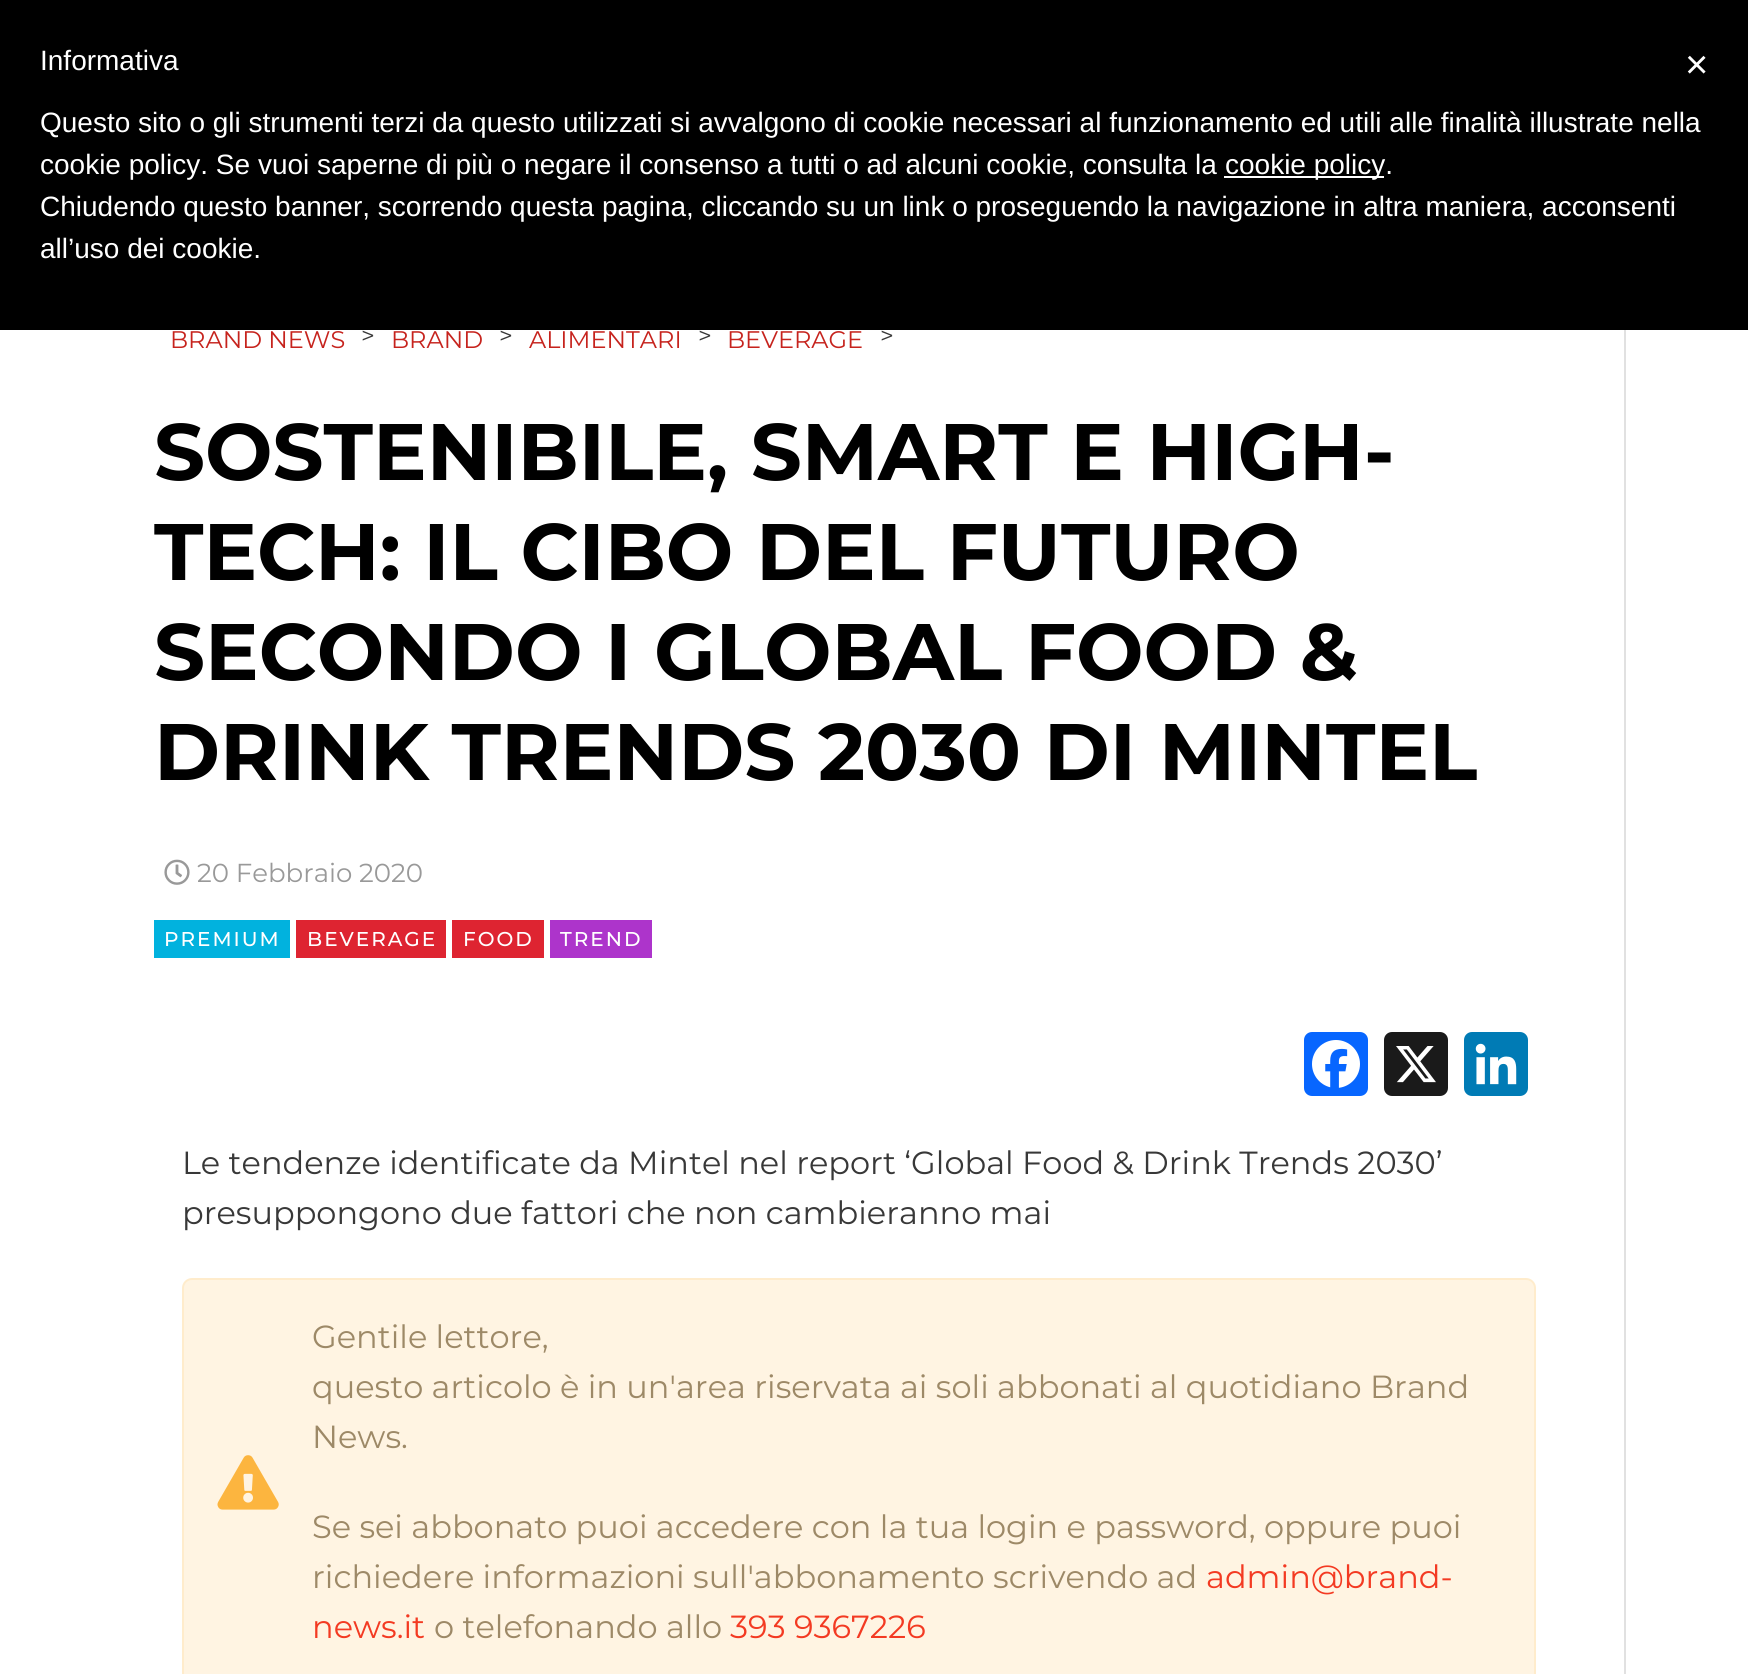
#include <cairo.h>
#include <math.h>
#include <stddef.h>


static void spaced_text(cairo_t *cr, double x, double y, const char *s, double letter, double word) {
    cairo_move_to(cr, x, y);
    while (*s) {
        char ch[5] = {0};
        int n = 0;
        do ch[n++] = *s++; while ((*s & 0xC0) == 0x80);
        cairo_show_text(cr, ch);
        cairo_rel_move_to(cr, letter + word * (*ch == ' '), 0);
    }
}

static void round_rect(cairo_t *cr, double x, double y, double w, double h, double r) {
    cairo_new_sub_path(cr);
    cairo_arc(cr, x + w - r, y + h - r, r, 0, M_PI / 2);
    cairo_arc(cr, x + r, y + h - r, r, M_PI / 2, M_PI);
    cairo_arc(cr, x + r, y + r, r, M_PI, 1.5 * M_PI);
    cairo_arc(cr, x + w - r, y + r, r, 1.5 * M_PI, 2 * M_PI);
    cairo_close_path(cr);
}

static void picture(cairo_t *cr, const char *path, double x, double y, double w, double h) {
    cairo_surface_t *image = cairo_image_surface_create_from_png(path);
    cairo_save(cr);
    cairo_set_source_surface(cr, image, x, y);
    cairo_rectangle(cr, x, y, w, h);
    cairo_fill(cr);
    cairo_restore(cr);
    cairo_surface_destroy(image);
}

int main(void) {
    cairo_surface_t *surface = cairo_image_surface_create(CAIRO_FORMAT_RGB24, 1748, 1674);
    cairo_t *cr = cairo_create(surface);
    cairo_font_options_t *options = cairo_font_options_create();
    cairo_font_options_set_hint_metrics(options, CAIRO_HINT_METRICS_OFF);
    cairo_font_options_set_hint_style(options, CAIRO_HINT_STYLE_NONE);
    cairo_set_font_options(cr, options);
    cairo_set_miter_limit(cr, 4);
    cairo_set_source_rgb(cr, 1, 1, 1);
    cairo_paint(cr);
    cairo_set_source_rgb(cr, 0, 0, 0);
    cairo_rectangle(cr, 0, 0, 1748, 330);
    cairo_fill(cr);
    cairo_select_font_face(cr, "Liberation Sans", CAIRO_FONT_SLANT_NORMAL, CAIRO_FONT_WEIGHT_NORMAL);
    cairo_set_font_size(cr, 28);
    cairo_set_source_rgb(cr, 1, 1, 1);
    cairo_move_to(cr, 40, 70);
    cairo_show_text(cr, "Informativa");
    cairo_move_to(cr, 40, 132);
    cairo_show_text(cr, "Questo sito o gli strumenti terzi da questo utilizzati si avvalgono di cookie necessari al funzionamento ed utili alle finalità illustrate nella");
    cairo_move_to(cr, 40, 174);
    cairo_show_text(cr, "cookie policy. Se vuoi saperne di più o negare il consenso a tutti o ad alcuni cookie, consulta la");
    cairo_rectangle(cr, 1224, 176, 160, 2);
    cairo_fill(cr);
    cairo_move_to(cr, 1225, 174);
    cairo_show_text(cr, "cookie policy.");
    cairo_move_to(cr, 40, 216);
    cairo_show_text(cr, "Chiudendo questo banner, scorrendo questa pagina, cliccando su un link o proseguendo la navigazione in altra maniera, acconsenti");
    cairo_move_to(cr, 40, 258);
    cairo_show_text(cr, "all’uso dei cookie.");
    cairo_set_font_size(cr, 40);
    cairo_move_to(cr, 1685, 78);
    cairo_show_text(cr, "×");
    cairo_select_font_face(cr, "Montserrat", CAIRO_FONT_SLANT_NORMAL, CAIRO_FONT_WEIGHT_NORMAL);
    cairo_set_font_size(cr, 24);
    cairo_set_source_rgb(cr, 0.776, 0.137, 0.114);
    cairo_move_to(cr, 170, 348);
    cairo_show_text(cr, "BRAND NEWS");
    cairo_set_source_rgb(cr, 0.22, 0.22, 0.22);
    cairo_move_to(cr, 361, 344);
    cairo_show_text(cr, ">");
    cairo_set_source_rgb(cr, 0.776, 0.137, 0.114);
    cairo_move_to(cr, 391, 348);
    cairo_show_text(cr, "BRAND");
    cairo_set_source_rgb(cr, 0.22, 0.22, 0.22);
    cairo_move_to(cr, 499, 344);
    cairo_show_text(cr, ">");
    cairo_set_source_rgb(cr, 0.776, 0.137, 0.114);
    cairo_move_to(cr, 529, 348);
    cairo_show_text(cr, "ALIMENTARI");
    cairo_set_source_rgb(cr, 0.22, 0.22, 0.22);
    cairo_move_to(cr, 698, 344);
    cairo_show_text(cr, ">");
    cairo_set_source_rgb(cr, 0.776, 0.137, 0.114);
    cairo_move_to(cr, 727, 348);
    cairo_show_text(cr, "BEVERAGE");
    cairo_set_source_rgb(cr, 0.22, 0.22, 0.22);
    cairo_move_to(cr, 880, 344);
    cairo_show_text(cr, ">");
    cairo_set_source_rgb(cr, 0.882, 0.882, 0.882);
    cairo_rectangle(cr, 1624, 330, 2, 1344);
    cairo_fill(cr);
    cairo_select_font_face(cr, "Montserrat", CAIRO_FONT_SLANT_NORMAL, CAIRO_FONT_WEIGHT_BOLD);
    cairo_set_font_size(cr, 80);
    cairo_set_source_rgb(cr, 0, 0, 0);
    cairo_move_to(cr, 154, 480);
    cairo_show_text(cr, "SOSTENIBILE, SMART E HIGH-");
    cairo_move_to(cr, 154, 580);
    cairo_show_text(cr, "TECH: IL CIBO DEL FUTURO");
    cairo_move_to(cr, 154, 680);
    cairo_show_text(cr, "SECONDO I GLOBAL FOOD &");
    cairo_move_to(cr, 154, 780);
    cairo_show_text(cr, "DRINK TRENDS 2030 DI MINTEL");
    picture(cr, "img1.png", 164, 859, 26, 26);
    cairo_select_font_face(cr, "Montserrat", CAIRO_FONT_SLANT_NORMAL, CAIRO_FONT_WEIGHT_NORMAL);
    cairo_set_font_size(cr, 26);
    cairo_set_source_rgb(cr, 0.6, 0.6, 0.6);
    cairo_move_to(cr, 197, 882);
    cairo_show_text(cr, "20 Febbraio 2020");
    cairo_set_source_rgb(cr, 0.004, 0.698, 0.871);
    cairo_rectangle(cr, 154, 920, 136, 38);
    cairo_fill(cr);
    cairo_select_font_face(cr, "Montserrat Medium", CAIRO_FONT_SLANT_NORMAL, CAIRO_FONT_WEIGHT_NORMAL);
    cairo_set_font_size(cr, 20);
    cairo_set_source_rgb(cr, 1, 1, 1);
    spaced_text(cr, 164, 946, "PREMIUM", 2, 0);
    cairo_set_source_rgb(cr, 0.871, 0.141, 0.192);
    cairo_rectangle(cr, 296, 920, 150, 38);
    cairo_fill(cr);
    cairo_set_source_rgb(cr, 1, 1, 1);
    spaced_text(cr, 307, 946, "BEVERAGE", 2, 0);
    cairo_set_source_rgb(cr, 0.871, 0.141, 0.192);
    cairo_rectangle(cr, 452, 920, 92, 38);
    cairo_fill(cr);
    cairo_set_source_rgb(cr, 1, 1, 1);
    spaced_text(cr, 463, 946, "FOOD", 2, 0);
    cairo_set_source_rgb(cr, 0.678, 0.204, 0.796);
    cairo_rectangle(cr, 550, 920, 102, 38);
    cairo_fill(cr);
    cairo_set_source_rgb(cr, 1, 1, 1);
    spaced_text(cr, 560, 946, "TREND", 2, 0);
    cairo_set_source_rgb(cr, 0.031, 0.4, 1);
    round_rect(cr, 1304, 1032, 64, 64, 8);
    cairo_fill(cr);
    picture(cr, "img2.png", 1312, 1040, 48, 48);
    cairo_set_source_rgb(cr, 0.102, 0.102, 0.102);
    round_rect(cr, 1384, 1032, 64, 64, 8);
    cairo_fill(cr);
    picture(cr, "img3.png", 1396, 1046, 40, 37);
    cairo_set_source_rgb(cr, 0, 0.482, 0.71);
    round_rect(cr, 1464, 1032, 64, 64, 8);
    cairo_fill(cr);
    picture(cr, "img4.png", 1475, 1043, 42, 42);
    cairo_select_font_face(cr, "Montserrat", CAIRO_FONT_SLANT_NORMAL, CAIRO_FONT_WEIGHT_NORMAL);
    cairo_set_font_size(cr, 32);
    cairo_set_source_rgb(cr, 0.22, 0.22, 0.22);
    cairo_move_to(cr, 182, 1174);
    cairo_show_text(cr, "Le tendenze identificate da Mintel nel report ‘Global Food & Drink Trends 2030’");
    cairo_move_to(cr, 182, 1224);
    cairo_show_text(cr, "presuppongono due fattori che non cambieranno mai");
    cairo_set_source_rgb(cr, 1, 0.957, 0.886);
    round_rect(cr, 183, 1279, 1352, 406, 9);
    cairo_fill_preserve(cr);
    cairo_set_source_rgb(cr, 1, 0.925, 0.8);
    cairo_stroke(cr);
    cairo_set_source_rgb(cr, 0.616, 0.537, 0.404);
    cairo_move_to(cr, 312, 1348);
    cairo_show_text(cr, "Gentile lettore,");
    cairo_move_to(cr, 312, 1398);
    cairo_show_text(cr, "questo articolo è in un'area riservata ai soli abbonati al quotidiano Brand");
    cairo_move_to(cr, 312, 1448);
    cairo_show_text(cr, "News.");
    picture(cr, "img5.png", 217, 1455, 62, 55);
    cairo_move_to(cr, 312, 1538);
    cairo_show_text(cr, "Se sei abbonato puoi accedere con la tua login e password, oppure puoi");
    cairo_move_to(cr, 312, 1588);
    cairo_show_text(cr, "richiedere informazioni sull'abbonamento scrivendo ad");
    cairo_set_source_rgb(cr, 0.953, 0.227, 0.133);
    cairo_move_to(cr, 1206, 1588);
    cairo_show_text(cr, "admin@brand-");
    cairo_move_to(cr, 312, 1638);
    cairo_show_text(cr, "news.it");
    cairo_set_source_rgb(cr, 0.616, 0.537, 0.404);
    cairo_move_to(cr, 434, 1638);
    cairo_show_text(cr, "o telefonando allo");
    cairo_set_source_rgb(cr, 0.953, 0.227, 0.133);
    cairo_move_to(cr, 730, 1638);
    cairo_show_text(cr, "393 9367226");
    cairo_surface_write_to_png(surface, "page.png");
    cairo_font_options_destroy(options);
    cairo_destroy(cr);
    cairo_surface_destroy(surface);
    return 0;
}
